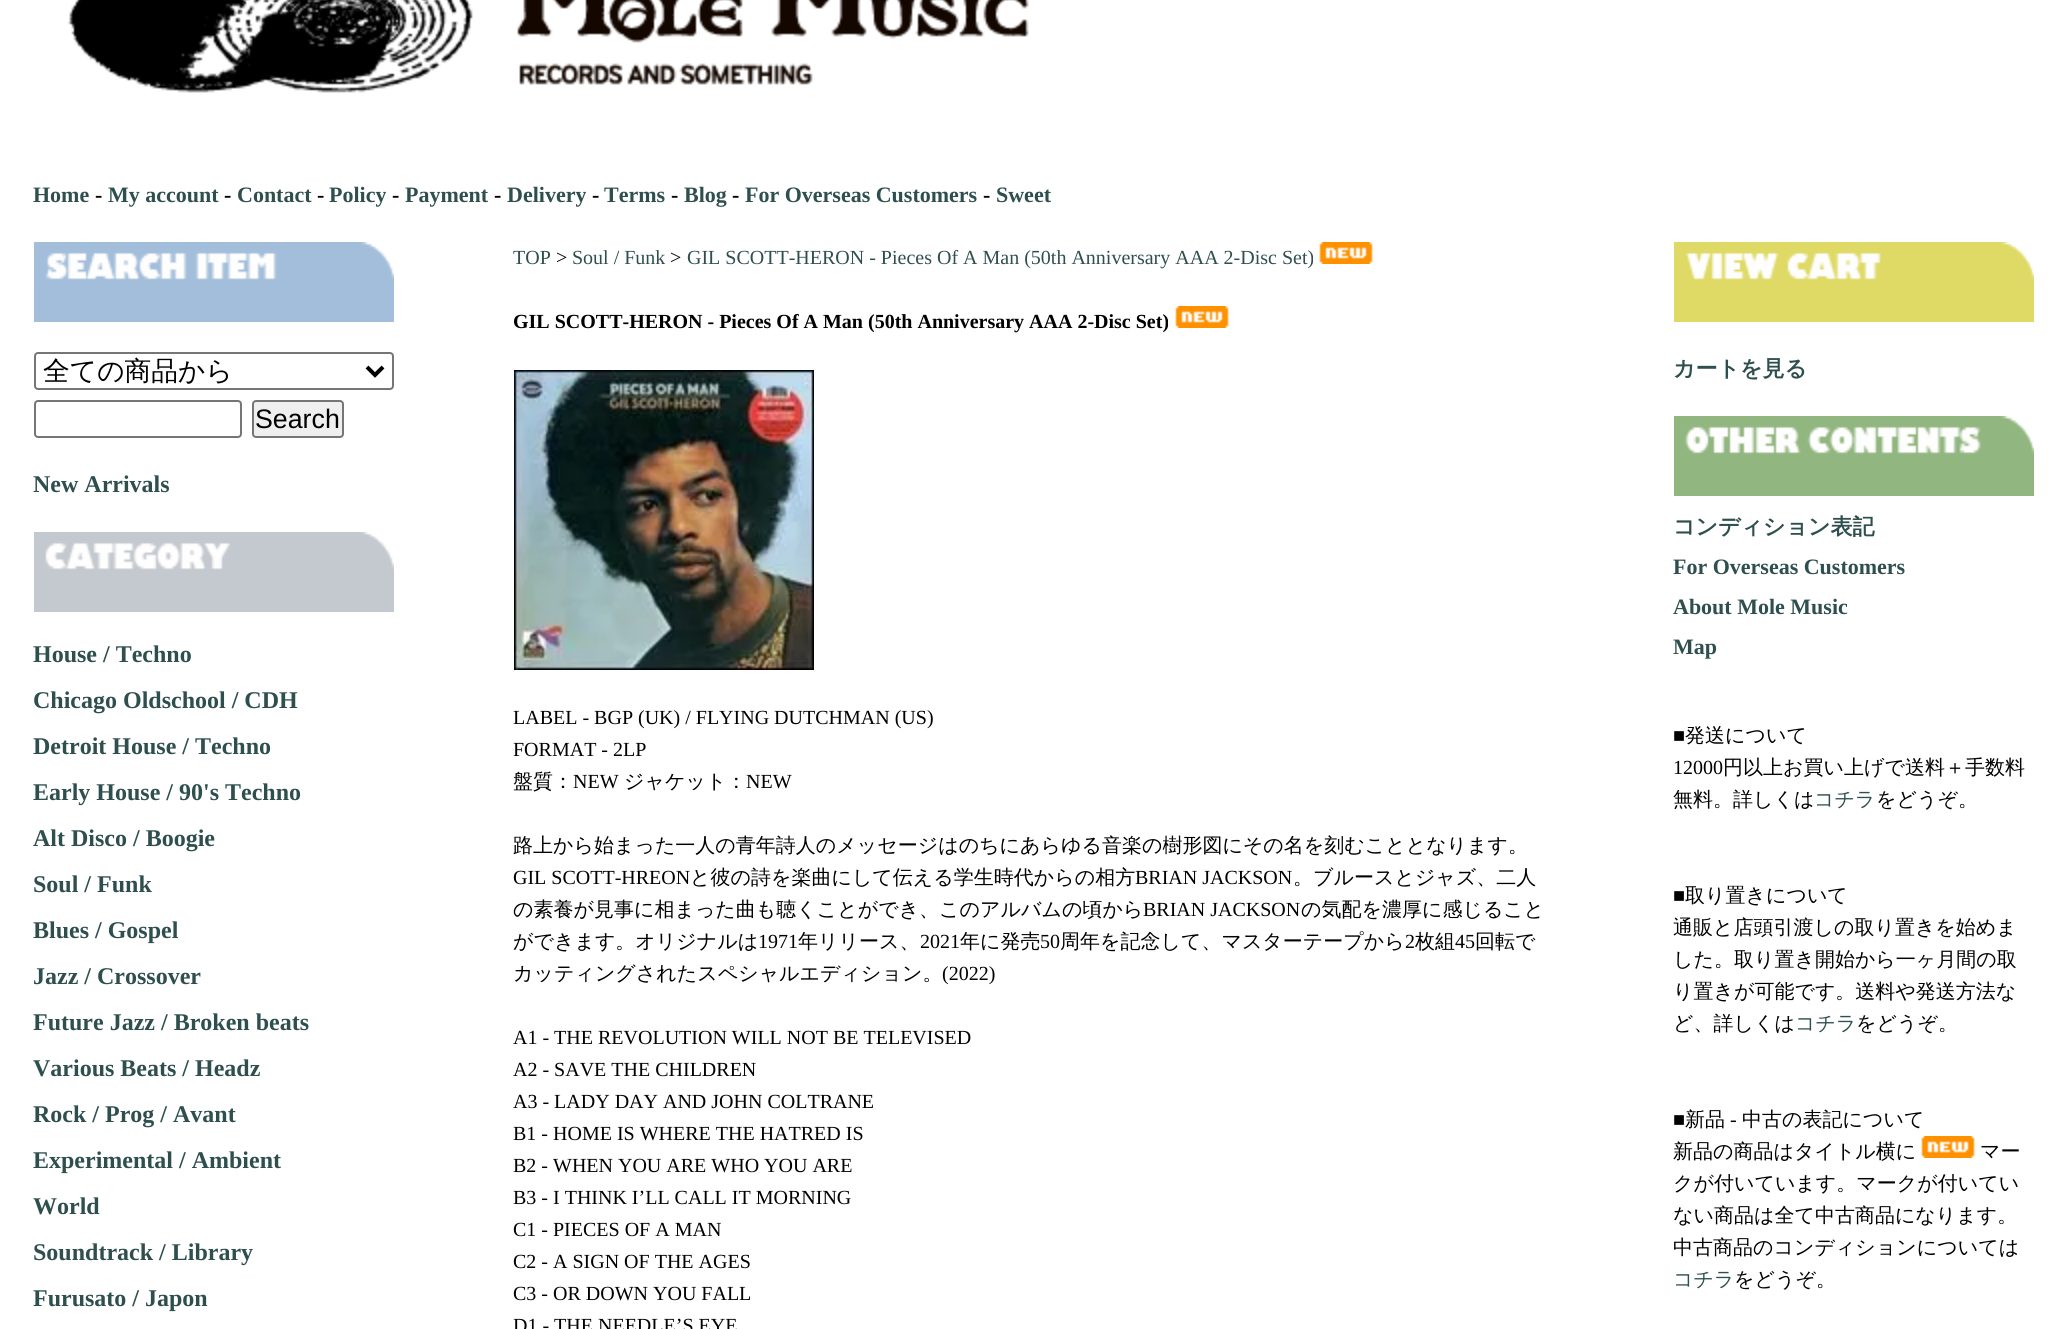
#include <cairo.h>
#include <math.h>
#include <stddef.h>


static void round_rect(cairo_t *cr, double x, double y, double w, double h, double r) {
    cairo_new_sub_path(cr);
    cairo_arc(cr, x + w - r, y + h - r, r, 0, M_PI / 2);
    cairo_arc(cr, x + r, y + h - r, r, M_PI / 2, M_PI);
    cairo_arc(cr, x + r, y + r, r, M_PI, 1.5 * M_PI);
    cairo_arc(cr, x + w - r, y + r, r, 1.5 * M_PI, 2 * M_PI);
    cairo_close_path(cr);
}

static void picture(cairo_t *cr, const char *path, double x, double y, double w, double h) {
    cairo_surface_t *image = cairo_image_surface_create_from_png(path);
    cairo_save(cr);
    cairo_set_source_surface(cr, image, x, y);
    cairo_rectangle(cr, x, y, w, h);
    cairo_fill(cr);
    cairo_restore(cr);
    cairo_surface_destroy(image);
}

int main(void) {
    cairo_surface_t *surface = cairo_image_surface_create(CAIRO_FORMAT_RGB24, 2065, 1329);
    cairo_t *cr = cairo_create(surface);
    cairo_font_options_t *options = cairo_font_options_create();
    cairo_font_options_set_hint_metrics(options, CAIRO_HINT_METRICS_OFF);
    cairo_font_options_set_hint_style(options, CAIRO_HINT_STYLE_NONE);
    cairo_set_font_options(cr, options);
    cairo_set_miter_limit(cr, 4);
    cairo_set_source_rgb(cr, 1, 1, 1);
    cairo_paint(cr);
    picture(cr, "img1.png", 67, 0, 962, 93);
    cairo_select_font_face(cr, "Liberation Serif", CAIRO_FONT_SLANT_NORMAL, CAIRO_FONT_WEIGHT_BOLD);
    cairo_set_font_size(cr, 22);
    cairo_set_source_rgb(cr, 0.184, 0.31, 0.31);
    cairo_move_to(cr, 33, 202);
    cairo_show_text(cr, "Home");
    cairo_set_source_rgb(cr, 0, 0, 0);
    cairo_move_to(cr, 95, 202);
    cairo_show_text(cr, "-");
    cairo_set_source_rgb(cr, 0.184, 0.31, 0.31);
    cairo_move_to(cr, 108, 202);
    cairo_show_text(cr, "My account");
    cairo_set_source_rgb(cr, 0, 0, 0);
    cairo_move_to(cr, 224, 202);
    cairo_show_text(cr, "-");
    cairo_set_source_rgb(cr, 0.184, 0.31, 0.31);
    cairo_move_to(cr, 237, 202);
    cairo_show_text(cr, "Contact");
    cairo_set_source_rgb(cr, 0, 0, 0);
    cairo_move_to(cr, 317, 202);
    cairo_show_text(cr, "-");
    cairo_set_source_rgb(cr, 0.184, 0.31, 0.31);
    cairo_move_to(cr, 329, 202);
    cairo_show_text(cr, "Policy");
    cairo_set_source_rgb(cr, 0, 0, 0);
    cairo_move_to(cr, 392, 202);
    cairo_show_text(cr, "-");
    cairo_set_source_rgb(cr, 0.184, 0.31, 0.31);
    cairo_move_to(cr, 405, 202);
    cairo_show_text(cr, "Payment");
    cairo_set_source_rgb(cr, 0, 0, 0);
    cairo_move_to(cr, 494, 202);
    cairo_show_text(cr, "-");
    cairo_set_source_rgb(cr, 0.184, 0.31, 0.31);
    cairo_move_to(cr, 507, 202);
    cairo_show_text(cr, "Delivery");
    cairo_set_source_rgb(cr, 0, 0, 0);
    cairo_move_to(cr, 592, 202);
    cairo_show_text(cr, "-");
    cairo_set_source_rgb(cr, 0.184, 0.31, 0.31);
    cairo_move_to(cr, 604, 202);
    cairo_show_text(cr, "Terms");
    cairo_set_source_rgb(cr, 0, 0, 0);
    cairo_move_to(cr, 671, 202);
    cairo_show_text(cr, "-");
    cairo_set_source_rgb(cr, 0.184, 0.31, 0.31);
    cairo_move_to(cr, 684, 202);
    cairo_show_text(cr, "Blog");
    cairo_set_source_rgb(cr, 0, 0, 0);
    cairo_move_to(cr, 732, 202);
    cairo_show_text(cr, "-");
    cairo_set_source_rgb(cr, 0.184, 0.31, 0.31);
    cairo_move_to(cr, 745, 202);
    cairo_show_text(cr, "For Overseas Customers");
    cairo_set_source_rgb(cr, 0, 0, 0);
    cairo_move_to(cr, 983, 202);
    cairo_show_text(cr, "-");
    cairo_set_source_rgb(cr, 0.184, 0.31, 0.31);
    cairo_move_to(cr, 996, 202);
    cairo_show_text(cr, "Sweet");
    picture(cr, "img2.png", 34, 242, 360, 80);
    round_rect(cr, 35, 353, 358, 36, 3);
    cairo_set_source_rgb(cr, 0.463, 0.463, 0.463);
    cairo_stroke(cr);
    cairo_new_path(cr);
    cairo_move_to(cr, 367, 367);
    cairo_line_to(cr, 375, 375);
    cairo_line_to(cr, 383, 367);
    cairo_set_source_rgb(cr, 0, 0, 0);
    cairo_set_line_width(cr, 4);
    cairo_stroke(cr);
    cairo_select_font_face(cr, "WenQuanYi Zen Hei Medium", CAIRO_FONT_SLANT_NORMAL, CAIRO_FONT_WEIGHT_NORMAL);
    cairo_set_font_size(cr, 26.75);
    cairo_move_to(cr, 43, 380);
    cairo_show_text(cr, "全ての商品から");
    round_rect(cr, 35, 401, 206, 36, 3);
    cairo_set_source_rgb(cr, 0.463, 0.463, 0.463);
    cairo_set_line_width(cr, 2);
    cairo_stroke(cr);
    cairo_set_source_rgb(cr, 0.937, 0.937, 0.937);
    round_rect(cr, 253, 401, 90, 36, 3);
    cairo_fill_preserve(cr);
    cairo_set_source_rgb(cr, 0.463, 0.463, 0.463);
    cairo_stroke(cr);
    cairo_select_font_face(cr, "Liberation Sans", CAIRO_FONT_SLANT_NORMAL, CAIRO_FONT_WEIGHT_NORMAL);
    cairo_set_source_rgb(cr, 0, 0, 0);
    cairo_move_to(cr, 255, 428);
    cairo_show_text(cr, "Search");
    cairo_select_font_face(cr, "Liberation Serif", CAIRO_FONT_SLANT_NORMAL, CAIRO_FONT_WEIGHT_BOLD);
    cairo_set_font_size(cr, 24);
    cairo_set_source_rgb(cr, 0.184, 0.31, 0.31);
    cairo_move_to(cr, 33, 492);
    cairo_show_text(cr, "New Arrivals");
    picture(cr, "img3.png", 34, 532, 360, 80);
    cairo_move_to(cr, 33, 662);
    cairo_show_text(cr, "House / Techno");
    cairo_move_to(cr, 33, 708);
    cairo_show_text(cr, "Chicago Oldschool / CDH");
    cairo_move_to(cr, 33, 754);
    cairo_show_text(cr, "Detroit House / Techno");
    cairo_move_to(cr, 33, 800);
    cairo_show_text(cr, "Early House / 90's Techno");
    cairo_move_to(cr, 33, 846);
    cairo_show_text(cr, "Alt Disco / Boogie");
    cairo_move_to(cr, 33, 892);
    cairo_show_text(cr, "Soul / Funk");
    cairo_move_to(cr, 33, 938);
    cairo_show_text(cr, "Blues / Gospel");
    cairo_move_to(cr, 33, 984);
    cairo_show_text(cr, "Jazz / Crossover");
    cairo_move_to(cr, 33, 1030);
    cairo_show_text(cr, "Future Jazz / Broken beats");
    cairo_move_to(cr, 33, 1076);
    cairo_show_text(cr, "Various Beats / Headz");
    cairo_move_to(cr, 33, 1122);
    cairo_show_text(cr, "Rock / Prog / Avant");
    cairo_move_to(cr, 33, 1168);
    cairo_show_text(cr, "Experimental / Ambient");
    cairo_move_to(cr, 33, 1214);
    cairo_show_text(cr, "World");
    cairo_move_to(cr, 33, 1260);
    cairo_show_text(cr, "Soundtrack / Library");
    cairo_move_to(cr, 33, 1306);
    cairo_show_text(cr, "Furusato / Japon");
    cairo_select_font_face(cr, "Liberation Serif", CAIRO_FONT_SLANT_NORMAL, CAIRO_FONT_WEIGHT_NORMAL);
    cairo_set_font_size(cr, 20);
    cairo_move_to(cr, 513, 264);
    cairo_show_text(cr, "TOP");
    cairo_set_source_rgb(cr, 0, 0, 0);
    cairo_move_to(cr, 556, 264);
    cairo_show_text(cr, ">");
    cairo_set_source_rgb(cr, 0.184, 0.31, 0.31);
    cairo_move_to(cr, 572, 264);
    cairo_show_text(cr, "Soul / Funk");
    cairo_set_source_rgb(cr, 0, 0, 0);
    cairo_move_to(cr, 670, 264);
    cairo_show_text(cr, ">");
    cairo_set_source_rgb(cr, 0.184, 0.31, 0.31);
    cairo_move_to(cr, 687, 264);
    cairo_show_text(cr, "GIL SCOTT-HERON - Pieces Of A Man (50th Anniversary AAA 2-Disc Set)");
    picture(cr, "img4.png", 1319, 242, 54, 22);
    cairo_select_font_face(cr, "Liberation Serif", CAIRO_FONT_SLANT_NORMAL, CAIRO_FONT_WEIGHT_BOLD);
    cairo_set_source_rgb(cr, 0, 0, 0);
    cairo_move_to(cr, 513, 328);
    cairo_show_text(cr, "GIL SCOTT-HERON - Pieces Of A Man (50th Anniversary AAA 2-Disc Set)");
    picture(cr, "img4.png", 1175, 306, 54, 22);
    picture(cr, "img5.png", 514, 370, 300, 300);
    cairo_select_font_face(cr, "Liberation Serif", CAIRO_FONT_SLANT_NORMAL, CAIRO_FONT_WEIGHT_NORMAL);
    cairo_move_to(cr, 513, 724);
    cairo_show_text(cr, "LABEL - BGP (UK) / FLYING DUTCHMAN (US)");
    cairo_move_to(cr, 513, 756);
    cairo_show_text(cr, "FORMAT - 2LP");
    cairo_select_font_face(cr, "WenQuanYi Zen Hei Medium", CAIRO_FONT_SLANT_NORMAL, CAIRO_FONT_WEIGHT_NORMAL);
    cairo_move_to(cr, 513, 788);
    cairo_show_text(cr, "盤質：");
    cairo_select_font_face(cr, "Liberation Serif", CAIRO_FONT_SLANT_NORMAL, CAIRO_FONT_WEIGHT_NORMAL);
    cairo_move_to(cr, 573, 788);
    cairo_show_text(cr, "NEW");
    cairo_select_font_face(cr, "WenQuanYi Zen Hei Medium", CAIRO_FONT_SLANT_NORMAL, CAIRO_FONT_WEIGHT_NORMAL);
    cairo_move_to(cr, 624, 788);
    cairo_show_text(cr, "ジャケット：");
    cairo_select_font_face(cr, "Liberation Serif", CAIRO_FONT_SLANT_NORMAL, CAIRO_FONT_WEIGHT_NORMAL);
    cairo_move_to(cr, 746, 788);
    cairo_show_text(cr, "NEW");
    cairo_select_font_face(cr, "WenQuanYi Zen Hei Medium", CAIRO_FONT_SLANT_NORMAL, CAIRO_FONT_WEIGHT_NORMAL);
    cairo_move_to(cr, 513, 852);
    cairo_show_text(cr, "路上から始まった一人の青年詩人のメッセージはのちにあらゆる音楽の樹形図にその名を刻むこととなります。");
    cairo_select_font_face(cr, "Liberation Serif", CAIRO_FONT_SLANT_NORMAL, CAIRO_FONT_WEIGHT_NORMAL);
    cairo_move_to(cr, 513, 884);
    cairo_show_text(cr, "GIL SCOTT-HREON");
    cairo_select_font_face(cr, "WenQuanYi Zen Hei Medium", CAIRO_FONT_SLANT_NORMAL, CAIRO_FONT_WEIGHT_NORMAL);
    cairo_move_to(cr, 690, 884);
    cairo_show_text(cr, "と彼の詩を楽曲にして伝える学生時代からの相方");
    cairo_select_font_face(cr, "Liberation Serif", CAIRO_FONT_SLANT_NORMAL, CAIRO_FONT_WEIGHT_NORMAL);
    cairo_move_to(cr, 1135, 884);
    cairo_show_text(cr, "BRIAN JACKSON");
    cairo_select_font_face(cr, "WenQuanYi Zen Hei Medium", CAIRO_FONT_SLANT_NORMAL, CAIRO_FONT_WEIGHT_NORMAL);
    cairo_move_to(cr, 1293, 884);
    cairo_show_text(cr, "。ブルースとジャズ、二人");
    cairo_move_to(cr, 513, 916);
    cairo_show_text(cr, "の素養が見事に相まった曲も聴くことができ、このアルバムの頃から");
    cairo_select_font_face(cr, "Liberation Serif", CAIRO_FONT_SLANT_NORMAL, CAIRO_FONT_WEIGHT_NORMAL);
    cairo_move_to(cr, 1143, 916);
    cairo_show_text(cr, "BRIAN JACKSON");
    cairo_select_font_face(cr, "WenQuanYi Zen Hei Medium", CAIRO_FONT_SLANT_NORMAL, CAIRO_FONT_WEIGHT_NORMAL);
    cairo_move_to(cr, 1301, 916);
    cairo_show_text(cr, "の気配を濃厚に感じること");
    cairo_move_to(cr, 513, 948);
    cairo_show_text(cr, "ができます。オリジナルは");
    cairo_select_font_face(cr, "Liberation Serif", CAIRO_FONT_SLANT_NORMAL, CAIRO_FONT_WEIGHT_NORMAL);
    cairo_move_to(cr, 758, 948);
    cairo_show_text(cr, "1971");
    cairo_select_font_face(cr, "WenQuanYi Zen Hei Medium", CAIRO_FONT_SLANT_NORMAL, CAIRO_FONT_WEIGHT_NORMAL);
    cairo_move_to(cr, 798, 948);
    cairo_show_text(cr, "年リリース、");
    cairo_select_font_face(cr, "Liberation Serif", CAIRO_FONT_SLANT_NORMAL, CAIRO_FONT_WEIGHT_NORMAL);
    cairo_move_to(cr, 920, 948);
    cairo_show_text(cr, "2021");
    cairo_select_font_face(cr, "WenQuanYi Zen Hei Medium", CAIRO_FONT_SLANT_NORMAL, CAIRO_FONT_WEIGHT_NORMAL);
    cairo_move_to(cr, 960, 948);
    cairo_show_text(cr, "年に発売");
    cairo_select_font_face(cr, "Liberation Serif", CAIRO_FONT_SLANT_NORMAL, CAIRO_FONT_WEIGHT_NORMAL);
    cairo_move_to(cr, 1040, 948);
    cairo_show_text(cr, "50");
    cairo_select_font_face(cr, "WenQuanYi Zen Hei Medium", CAIRO_FONT_SLANT_NORMAL, CAIRO_FONT_WEIGHT_NORMAL);
    cairo_move_to(cr, 1060, 948);
    cairo_show_text(cr, "周年を記念して、マスターテープから");
    cairo_select_font_face(cr, "Liberation Serif", CAIRO_FONT_SLANT_NORMAL, CAIRO_FONT_WEIGHT_NORMAL);
    cairo_move_to(cr, 1405, 948);
    cairo_show_text(cr, "2");
    cairo_select_font_face(cr, "WenQuanYi Zen Hei Medium", CAIRO_FONT_SLANT_NORMAL, CAIRO_FONT_WEIGHT_NORMAL);
    cairo_move_to(cr, 1415, 948);
    cairo_show_text(cr, "枚組");
    cairo_select_font_face(cr, "Liberation Serif", CAIRO_FONT_SLANT_NORMAL, CAIRO_FONT_WEIGHT_NORMAL);
    cairo_move_to(cr, 1455, 948);
    cairo_show_text(cr, "45");
    cairo_select_font_face(cr, "WenQuanYi Zen Hei Medium", CAIRO_FONT_SLANT_NORMAL, CAIRO_FONT_WEIGHT_NORMAL);
    cairo_move_to(cr, 1475, 948);
    cairo_show_text(cr, "回転で");
    cairo_move_to(cr, 513, 980);
    cairo_show_text(cr, "カッティングされたスペシャルエディション。");
    cairo_select_font_face(cr, "Liberation Serif", CAIRO_FONT_SLANT_NORMAL, CAIRO_FONT_WEIGHT_NORMAL);
    cairo_move_to(cr, 942, 980);
    cairo_show_text(cr, "(2022)");
    cairo_move_to(cr, 513, 1044);
    cairo_show_text(cr, "A1 - THE REVOLUTION WILL NOT BE TELEVISED");
    cairo_move_to(cr, 513, 1076);
    cairo_show_text(cr, "A2 - SAVE THE CHILDREN");
    cairo_move_to(cr, 513, 1108);
    cairo_show_text(cr, "A3 - LADY DAY AND JOHN COLTRANE");
    cairo_move_to(cr, 513, 1140);
    cairo_show_text(cr, "B1 - HOME IS WHERE THE HATRED IS");
    cairo_move_to(cr, 513, 1172);
    cairo_show_text(cr, "B2 - WHEN YOU ARE WHO YOU ARE");
    cairo_move_to(cr, 513, 1204);
    cairo_show_text(cr, "B3 - I THINK I’LL CALL IT MORNING");
    cairo_move_to(cr, 513, 1236);
    cairo_show_text(cr, "C1 - PIECES OF A MAN");
    cairo_move_to(cr, 513, 1268);
    cairo_show_text(cr, "C2 - A SIGN OF THE AGES");
    cairo_move_to(cr, 513, 1300);
    cairo_show_text(cr, "C3 - OR DOWN YOU FALL");
    cairo_move_to(cr, 513, 1332);
    cairo_show_text(cr, "D1 - THE NEEDLE’S EYE");
    picture(cr, "img6.png", 1674, 242, 360, 80);
    cairo_select_font_face(cr, "WenQuanYi Zen Hei", CAIRO_FONT_SLANT_NORMAL, CAIRO_FONT_WEIGHT_BOLD);
    cairo_set_font_size(cr, 22);
    cairo_set_source_rgb(cr, 0.184, 0.31, 0.31);
    cairo_move_to(cr, 1673, 376);
    cairo_show_text(cr, "カートを見る");
    picture(cr, "img7.png", 1674, 416, 360, 80);
    cairo_move_to(cr, 1673, 534);
    cairo_show_text(cr, "コンディション表記");
    cairo_select_font_face(cr, "Liberation Serif", CAIRO_FONT_SLANT_NORMAL, CAIRO_FONT_WEIGHT_BOLD);
    cairo_move_to(cr, 1673, 574);
    cairo_show_text(cr, "For Overseas Customers");
    cairo_move_to(cr, 1673, 614);
    cairo_show_text(cr, "About Mole Music");
    cairo_move_to(cr, 1673, 654);
    cairo_show_text(cr, "Map");
    cairo_select_font_face(cr, "Liberation Serif", CAIRO_FONT_SLANT_NORMAL, CAIRO_FONT_WEIGHT_NORMAL);
    cairo_set_font_size(cr, 20);
    cairo_set_source_rgb(cr, 0, 0, 0);
    cairo_move_to(cr, 1673, 742);
    cairo_show_text(cr, "■");
    cairo_select_font_face(cr, "WenQuanYi Zen Hei Medium", CAIRO_FONT_SLANT_NORMAL, CAIRO_FONT_WEIGHT_NORMAL);
    cairo_move_to(cr, 1685, 742);
    cairo_show_text(cr, "発送について");
    cairo_select_font_face(cr, "Liberation Serif", CAIRO_FONT_SLANT_NORMAL, CAIRO_FONT_WEIGHT_NORMAL);
    cairo_move_to(cr, 1673, 774);
    cairo_show_text(cr, "12000");
    cairo_select_font_face(cr, "WenQuanYi Zen Hei Medium", CAIRO_FONT_SLANT_NORMAL, CAIRO_FONT_WEIGHT_NORMAL);
    cairo_move_to(cr, 1723, 774);
    cairo_show_text(cr, "円以上お買い上げで送料＋手数料");
    cairo_move_to(cr, 1673, 806);
    cairo_show_text(cr, "無料。詳しくは");
    cairo_set_source_rgb(cr, 0.184, 0.31, 0.31);
    cairo_move_to(cr, 1814, 806);
    cairo_show_text(cr, "コチラ");
    cairo_set_source_rgb(cr, 0, 0, 0);
    cairo_move_to(cr, 1876, 806);
    cairo_show_text(cr, "をどうぞ。");
    cairo_select_font_face(cr, "Liberation Serif", CAIRO_FONT_SLANT_NORMAL, CAIRO_FONT_WEIGHT_NORMAL);
    cairo_move_to(cr, 1673, 902);
    cairo_show_text(cr, "■");
    cairo_select_font_face(cr, "WenQuanYi Zen Hei Medium", CAIRO_FONT_SLANT_NORMAL, CAIRO_FONT_WEIGHT_NORMAL);
    cairo_move_to(cr, 1685, 902);
    cairo_show_text(cr, "取り置きについて");
    cairo_move_to(cr, 1673, 934);
    cairo_show_text(cr, "通販と店頭引渡しの取り置きを始めま");
    cairo_move_to(cr, 1673, 966);
    cairo_show_text(cr, "した。取り置き開始から一ヶ月間の取");
    cairo_move_to(cr, 1673, 998);
    cairo_show_text(cr, "り置きが可能です。送料や発送方法な");
    cairo_move_to(cr, 1673, 1030);
    cairo_show_text(cr, "ど、詳しくは");
    cairo_set_source_rgb(cr, 0.184, 0.31, 0.31);
    cairo_move_to(cr, 1795, 1030);
    cairo_show_text(cr, "コチラ");
    cairo_set_source_rgb(cr, 0, 0, 0);
    cairo_move_to(cr, 1856, 1030);
    cairo_show_text(cr, "をどうぞ。");
    cairo_select_font_face(cr, "Liberation Serif", CAIRO_FONT_SLANT_NORMAL, CAIRO_FONT_WEIGHT_NORMAL);
    cairo_move_to(cr, 1673, 1126);
    cairo_show_text(cr, "■");
    cairo_select_font_face(cr, "WenQuanYi Zen Hei Medium", CAIRO_FONT_SLANT_NORMAL, CAIRO_FONT_WEIGHT_NORMAL);
    cairo_move_to(cr, 1685, 1126);
    cairo_show_text(cr, "新品");
    cairo_select_font_face(cr, "Liberation Serif", CAIRO_FONT_SLANT_NORMAL, CAIRO_FONT_WEIGHT_NORMAL);
    cairo_move_to(cr, 1730, 1126);
    cairo_show_text(cr, "-");
    cairo_select_font_face(cr, "WenQuanYi Zen Hei Medium", CAIRO_FONT_SLANT_NORMAL, CAIRO_FONT_WEIGHT_NORMAL);
    cairo_move_to(cr, 1742, 1126);
    cairo_show_text(cr, "中古の表記について");
    cairo_move_to(cr, 1673, 1158);
    cairo_show_text(cr, "新品の商品はタイトル横に");
    picture(cr, "img4.png", 1921, 1136, 54, 22);
    cairo_move_to(cr, 1980, 1158);
    cairo_show_text(cr, "マー");
    cairo_move_to(cr, 1673, 1190);
    cairo_show_text(cr, "クが付いています。マークが付いてい");
    cairo_move_to(cr, 1673, 1222);
    cairo_show_text(cr, "ない商品は全て中古商品になります。");
    cairo_move_to(cr, 1673, 1254);
    cairo_show_text(cr, "中古商品のコンディションについては");
    cairo_set_source_rgb(cr, 0.184, 0.31, 0.31);
    cairo_move_to(cr, 1673, 1286);
    cairo_show_text(cr, "コチラ");
    cairo_set_source_rgb(cr, 0, 0, 0);
    cairo_move_to(cr, 1734, 1286);
    cairo_show_text(cr, "をどうぞ。");
    cairo_surface_write_to_png(surface, "page.png");
    cairo_font_options_destroy(options);
    cairo_destroy(cr);
    cairo_surface_destroy(surface);
    return 0;
}
